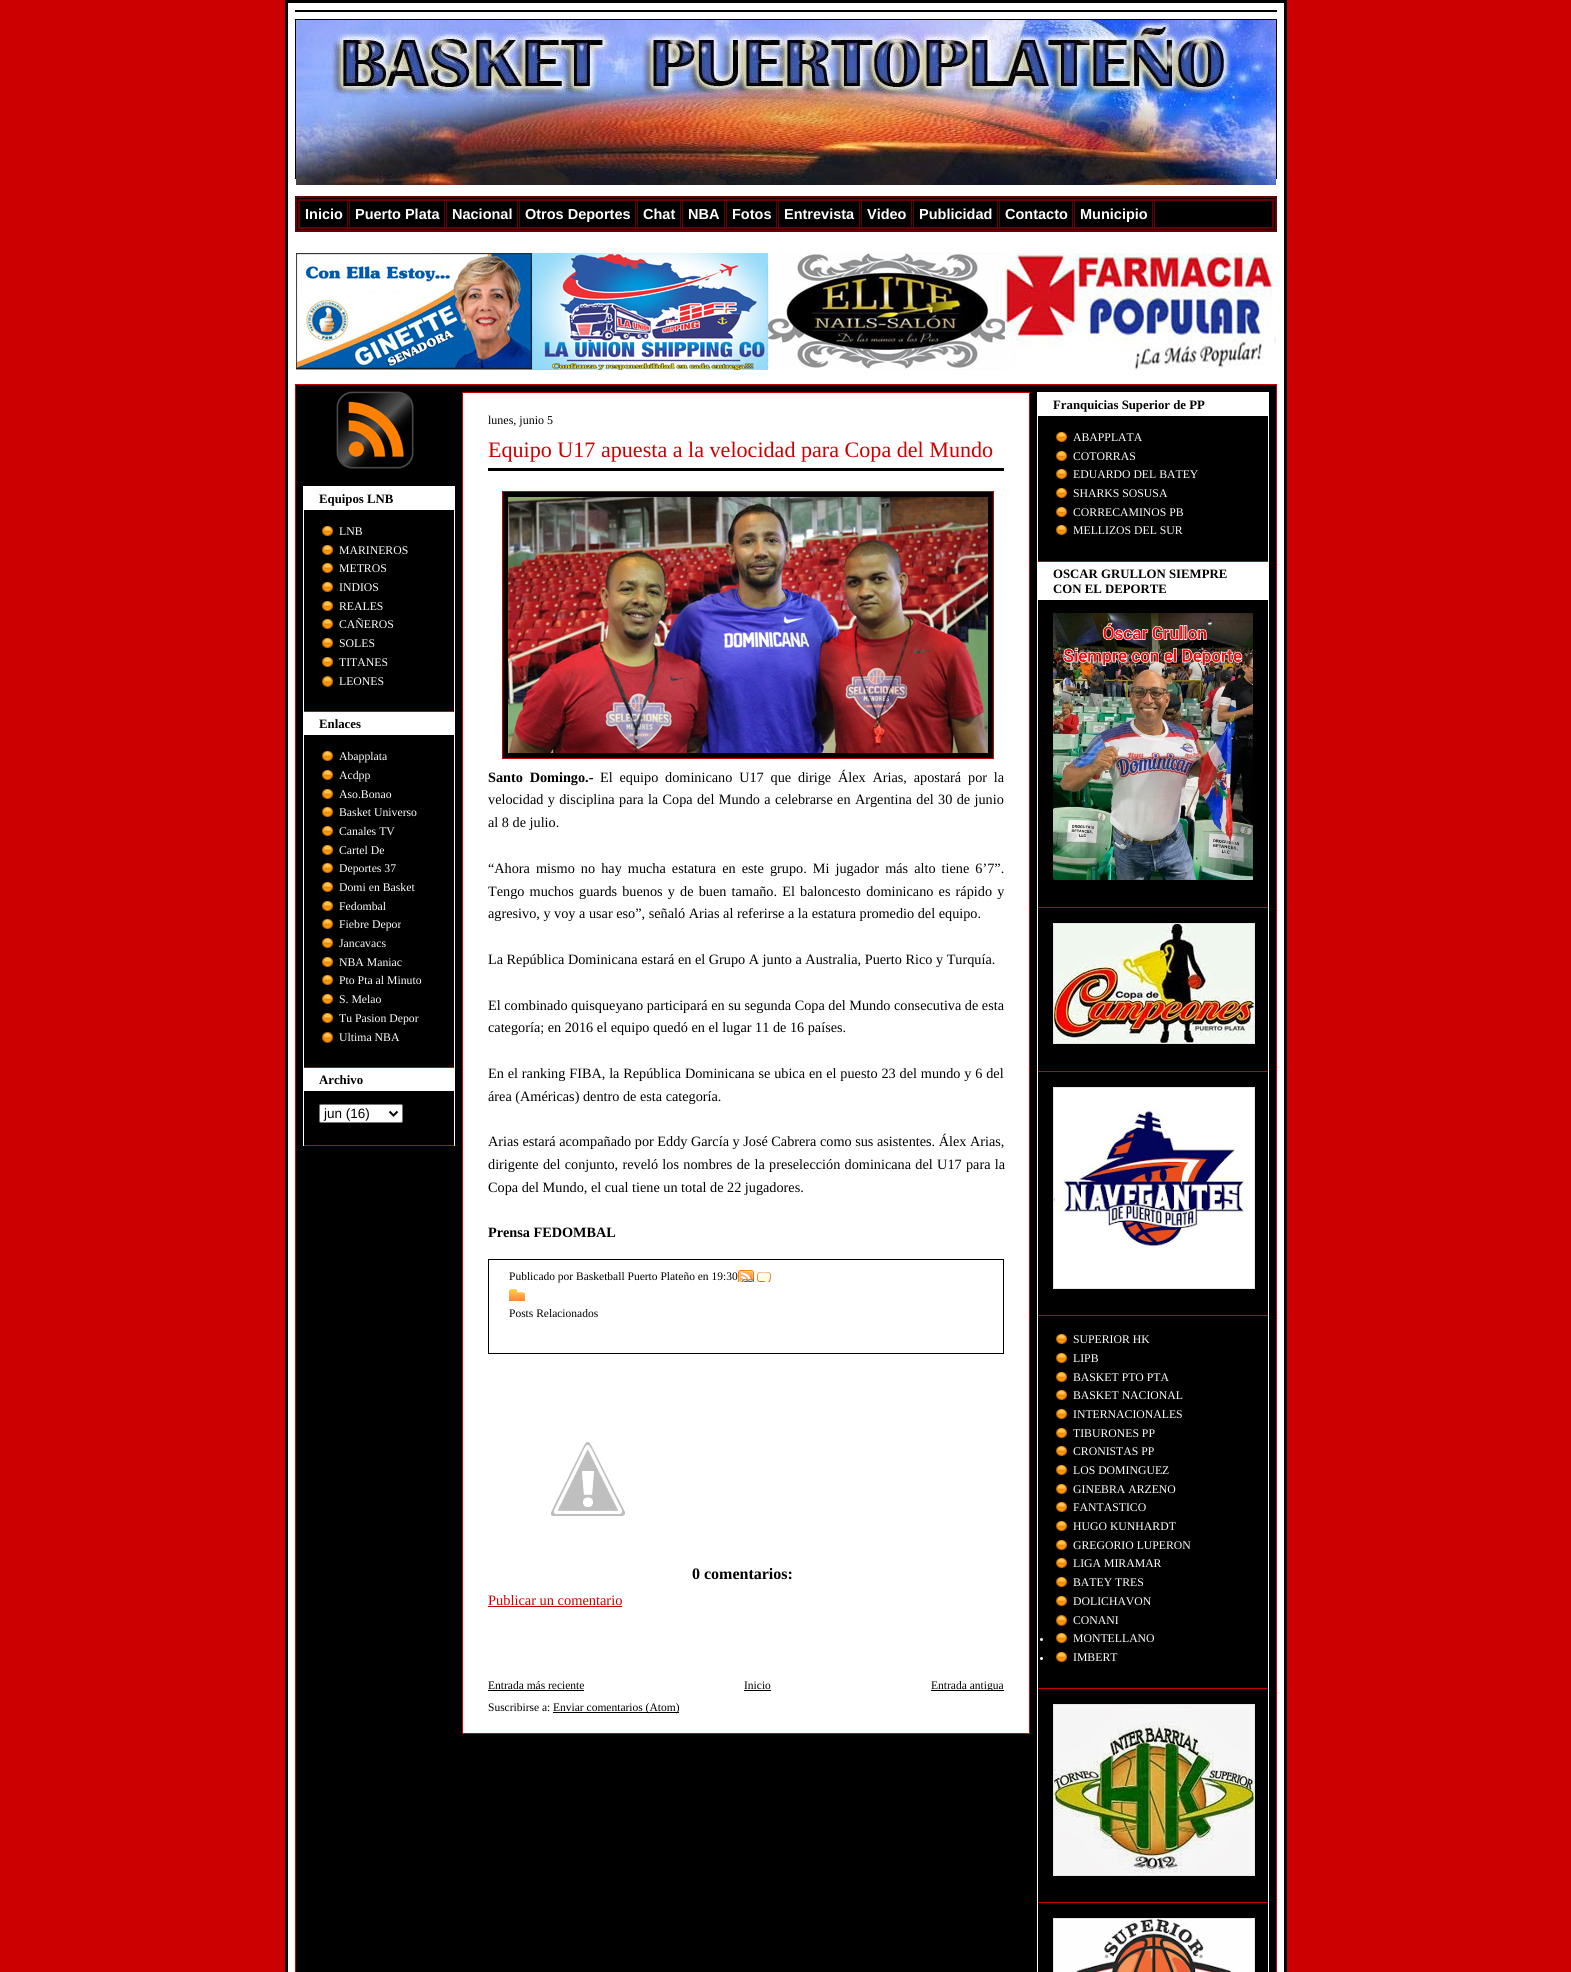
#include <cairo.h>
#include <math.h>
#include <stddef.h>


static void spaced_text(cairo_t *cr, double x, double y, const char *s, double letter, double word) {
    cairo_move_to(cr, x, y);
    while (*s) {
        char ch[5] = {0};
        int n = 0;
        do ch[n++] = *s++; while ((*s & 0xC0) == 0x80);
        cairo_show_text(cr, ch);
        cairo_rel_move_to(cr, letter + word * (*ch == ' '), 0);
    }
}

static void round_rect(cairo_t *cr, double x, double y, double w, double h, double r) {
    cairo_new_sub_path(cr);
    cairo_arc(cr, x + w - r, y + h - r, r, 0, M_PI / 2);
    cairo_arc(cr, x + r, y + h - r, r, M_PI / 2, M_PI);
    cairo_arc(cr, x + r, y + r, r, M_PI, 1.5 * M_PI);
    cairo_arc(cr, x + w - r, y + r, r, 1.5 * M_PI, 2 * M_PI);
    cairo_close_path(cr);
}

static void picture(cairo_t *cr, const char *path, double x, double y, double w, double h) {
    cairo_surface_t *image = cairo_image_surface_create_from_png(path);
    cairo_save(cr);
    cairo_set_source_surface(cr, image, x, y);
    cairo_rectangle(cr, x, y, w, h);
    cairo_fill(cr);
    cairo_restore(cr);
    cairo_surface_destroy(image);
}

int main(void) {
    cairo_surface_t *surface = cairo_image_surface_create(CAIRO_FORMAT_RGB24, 1571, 1972);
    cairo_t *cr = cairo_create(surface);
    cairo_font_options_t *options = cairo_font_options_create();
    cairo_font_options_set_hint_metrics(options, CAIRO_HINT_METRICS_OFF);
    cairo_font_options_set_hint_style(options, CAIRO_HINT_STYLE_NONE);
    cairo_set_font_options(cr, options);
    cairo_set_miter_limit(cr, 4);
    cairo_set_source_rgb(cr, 0.8, 0, 0);
    cairo_paint(cr);
    cairo_set_source_rgb(cr, 1, 1, 1);
    cairo_rectangle(cr, 286.5, 1.5, 999, 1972);
    cairo_fill_preserve(cr);
    cairo_set_source_rgb(cr, 0, 0, 0);
    cairo_set_line_width(cr, 3);
    cairo_stroke(cr);
    cairo_rectangle(cr, 295, 10, 982, 2);
    cairo_fill(cr);
    cairo_rectangle(cr, 295.5, 19.5, 981, 159);
    cairo_set_line_width(cr, 1);
    cairo_stroke(cr);
    picture(cr, "img1.png", 296, 20, 980, 165);
    cairo_rectangle(cr, 296, 197, 980, 34);
    cairo_fill_preserve(cr);
    cairo_set_source_rgb(cr, 0.4, 0, 0);
    cairo_set_line_width(cr, 2);
    cairo_stroke(cr);
    cairo_rectangle(cr, 299, 200, 974, 28);
    cairo_stroke(cr);
    cairo_select_font_face(cr, "Liberation Sans", CAIRO_FONT_SLANT_NORMAL, CAIRO_FONT_WEIGHT_BOLD);
    cairo_set_font_size(cr, 14.5);
    cairo_set_source_rgb(cr, 1, 1, 1);
    cairo_move_to(cr, 305, 219);
    cairo_show_text(cr, "Inicio");
    cairo_set_source_rgb(cr, 0.4, 0, 0);
    cairo_rectangle(cr, 347, 201, 1, 26);
    cairo_fill(cr);
    cairo_rectangle(cr, 349, 201, 1, 26);
    cairo_fill(cr);
    cairo_set_source_rgb(cr, 1, 1, 1);
    cairo_move_to(cr, 355, 219);
    cairo_show_text(cr, "Puerto Plata");
    cairo_set_source_rgb(cr, 0.4, 0, 0);
    cairo_rectangle(cr, 444, 201, 1, 26);
    cairo_fill(cr);
    cairo_rectangle(cr, 446, 201, 1, 26);
    cairo_fill(cr);
    cairo_set_source_rgb(cr, 1, 1, 1);
    cairo_move_to(cr, 452, 219);
    cairo_show_text(cr, "Nacional");
    cairo_set_source_rgb(cr, 0.4, 0, 0);
    cairo_rectangle(cr, 517, 201, 1, 26);
    cairo_fill(cr);
    cairo_rectangle(cr, 519, 201, 1, 26);
    cairo_fill(cr);
    cairo_set_source_rgb(cr, 1, 1, 1);
    cairo_move_to(cr, 525, 219);
    cairo_show_text(cr, "Otros Deportes");
    cairo_set_source_rgb(cr, 0.4, 0, 0);
    cairo_rectangle(cr, 635, 201, 1, 26);
    cairo_fill(cr);
    cairo_rectangle(cr, 637, 201, 1, 26);
    cairo_fill(cr);
    cairo_set_source_rgb(cr, 1, 1, 1);
    cairo_move_to(cr, 643, 219);
    cairo_show_text(cr, "Chat");
    cairo_set_source_rgb(cr, 0.4, 0, 0);
    cairo_rectangle(cr, 680, 201, 1, 26);
    cairo_fill(cr);
    cairo_rectangle(cr, 682, 201, 1, 26);
    cairo_fill(cr);
    cairo_set_source_rgb(cr, 1, 1, 1);
    cairo_move_to(cr, 688, 219);
    cairo_show_text(cr, "NBA");
    cairo_set_source_rgb(cr, 0.4, 0, 0);
    cairo_rectangle(cr, 724, 201, 1, 26);
    cairo_fill(cr);
    cairo_rectangle(cr, 726, 201, 1, 26);
    cairo_fill(cr);
    cairo_set_source_rgb(cr, 1, 1, 1);
    cairo_move_to(cr, 732, 219);
    cairo_show_text(cr, "Fotos");
    cairo_set_source_rgb(cr, 0.4, 0, 0);
    cairo_rectangle(cr, 776, 201, 1, 26);
    cairo_fill(cr);
    cairo_rectangle(cr, 778, 201, 1, 26);
    cairo_fill(cr);
    cairo_set_source_rgb(cr, 1, 1, 1);
    cairo_move_to(cr, 784, 219);
    cairo_show_text(cr, "Entrevista");
    cairo_set_source_rgb(cr, 0.4, 0, 0);
    cairo_rectangle(cr, 859, 201, 1, 26);
    cairo_fill(cr);
    cairo_rectangle(cr, 861, 201, 1, 26);
    cairo_fill(cr);
    cairo_set_source_rgb(cr, 1, 1, 1);
    cairo_move_to(cr, 867, 219);
    cairo_show_text(cr, "Video");
    cairo_set_source_rgb(cr, 0.4, 0, 0);
    cairo_rectangle(cr, 911, 201, 1, 26);
    cairo_fill(cr);
    cairo_rectangle(cr, 913, 201, 1, 26);
    cairo_fill(cr);
    cairo_set_source_rgb(cr, 1, 1, 1);
    cairo_move_to(cr, 919, 219);
    cairo_show_text(cr, "Publicidad");
    cairo_set_source_rgb(cr, 0.4, 0, 0);
    cairo_rectangle(cr, 997, 201, 1, 26);
    cairo_fill(cr);
    cairo_rectangle(cr, 999, 201, 1, 26);
    cairo_fill(cr);
    cairo_set_source_rgb(cr, 1, 1, 1);
    cairo_move_to(cr, 1005, 219);
    cairo_show_text(cr, "Contacto");
    cairo_set_source_rgb(cr, 0.4, 0, 0);
    cairo_rectangle(cr, 1072, 201, 1, 26);
    cairo_fill(cr);
    cairo_rectangle(cr, 1074, 201, 1, 26);
    cairo_fill(cr);
    cairo_set_source_rgb(cr, 1, 1, 1);
    cairo_move_to(cr, 1080, 219);
    cairo_show_text(cr, "Municipio");
    cairo_set_source_rgb(cr, 0.4, 0, 0);
    cairo_rectangle(cr, 1152, 201, 1, 26);
    cairo_fill(cr);
    cairo_rectangle(cr, 1154, 201, 1, 26);
    cairo_fill(cr);
    picture(cr, "img2.png", 296, 253, 980, 117);
    cairo_set_source_rgb(cr, 0, 0, 0);
    cairo_rectangle(cr, 295.5, 384.5, 981, 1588);
    cairo_fill_preserve(cr);
    cairo_set_source_rgb(cr, 0.8, 0, 0);
    cairo_set_line_width(cr, 1);
    cairo_stroke(cr);
    picture(cr, "img3.png", 336, 391, 78, 78);
    cairo_set_source_rgb(cr, 1, 1, 1);
    cairo_rectangle(cr, 303, 486, 152, 1);
    cairo_fill(cr);
    cairo_rectangle(cr, 454, 486, 1, 660);
    cairo_fill(cr);
    cairo_rectangle(cr, 303, 486, 1, 660);
    cairo_fill(cr);
    cairo_set_source_rgb(cr, 0.8, 0, 0);
    cairo_rectangle(cr, 304, 711, 150, 1);
    cairo_fill(cr);
    cairo_set_source_rgb(cr, 1, 1, 1);
    cairo_rectangle(cr, 304, 487, 150, 23);
    cairo_fill(cr);
    cairo_select_font_face(cr, "Liberation Serif", CAIRO_FONT_SLANT_NORMAL, CAIRO_FONT_WEIGHT_BOLD);
    cairo_set_font_size(cr, 12.8);
    cairo_set_source_rgb(cr, 0, 0, 0);
    cairo_move_to(cr, 319, 503);
    cairo_show_text(cr, "Equipos LNB");
    picture(cr, "img4.png", 322, 526, 11, 10);
    cairo_select_font_face(cr, "Liberation Serif", CAIRO_FONT_SLANT_NORMAL, CAIRO_FONT_WEIGHT_NORMAL);
    cairo_set_font_size(cr, 11.75);
    cairo_set_source_rgb(cr, 1, 1, 1);
    cairo_move_to(cr, 339, 535);
    cairo_show_text(cr, "LNB");
    picture(cr, "img4.png", 322, 545, 11, 10);
    cairo_move_to(cr, 339, 554);
    cairo_show_text(cr, "MARINEROS");
    picture(cr, "img4.png", 322, 563, 11, 10);
    cairo_move_to(cr, 339, 572);
    cairo_show_text(cr, "METROS");
    picture(cr, "img4.png", 322, 582, 11, 10);
    cairo_move_to(cr, 339, 591);
    cairo_show_text(cr, "INDIOS");
    picture(cr, "img4.png", 322, 601, 11, 10);
    cairo_move_to(cr, 339, 610);
    cairo_show_text(cr, "REALES");
    picture(cr, "img4.png", 322, 619, 11, 10);
    cairo_move_to(cr, 339, 628);
    cairo_show_text(cr, "CAÑEROS");
    picture(cr, "img4.png", 322, 638, 11, 10);
    cairo_move_to(cr, 339, 647);
    cairo_show_text(cr, "SOLES");
    picture(cr, "img4.png", 322, 657, 11, 10);
    cairo_move_to(cr, 339, 666);
    cairo_show_text(cr, "TITANES");
    picture(cr, "img5.png", 322, 676, 11, 11);
    cairo_move_to(cr, 339, 685);
    cairo_show_text(cr, "LEONES");
    cairo_set_source_rgb(cr, 0.8, 0, 0);
    cairo_rectangle(cr, 304, 1067, 150, 1);
    cairo_fill(cr);
    cairo_set_source_rgb(cr, 1, 1, 1);
    cairo_rectangle(cr, 304, 712, 150, 23);
    cairo_fill(cr);
    cairo_select_font_face(cr, "Liberation Serif", CAIRO_FONT_SLANT_NORMAL, CAIRO_FONT_WEIGHT_BOLD);
    cairo_set_font_size(cr, 12.8);
    cairo_set_source_rgb(cr, 0, 0, 0);
    cairo_move_to(cr, 319, 728);
    cairo_show_text(cr, "Enlaces");
    picture(cr, "img4.png", 322, 751, 11, 10);
    cairo_select_font_face(cr, "Liberation Serif", CAIRO_FONT_SLANT_NORMAL, CAIRO_FONT_WEIGHT_NORMAL);
    cairo_set_font_size(cr, 11.75);
    cairo_set_source_rgb(cr, 1, 1, 1);
    cairo_move_to(cr, 339, 760);
    cairo_show_text(cr, "Abapplata");
    picture(cr, "img4.png", 322, 770, 11, 10);
    cairo_move_to(cr, 339, 779);
    cairo_show_text(cr, "Acdpp");
    picture(cr, "img4.png", 322, 789, 11, 10);
    cairo_move_to(cr, 339, 798);
    cairo_show_text(cr, "Aso.Bonao");
    picture(cr, "img4.png", 322, 807, 11, 10);
    cairo_move_to(cr, 339, 816);
    cairo_show_text(cr, "Basket Universo");
    picture(cr, "img4.png", 322, 826, 11, 10);
    cairo_move_to(cr, 339, 835);
    cairo_show_text(cr, "Canales TV");
    picture(cr, "img4.png", 322, 845, 11, 10);
    cairo_move_to(cr, 339, 854);
    cairo_show_text(cr, "Cartel De");
    picture(cr, "img4.png", 322, 863, 11, 10);
    cairo_move_to(cr, 339, 872);
    cairo_show_text(cr, "Deportes 37");
    picture(cr, "img4.png", 322, 882, 11, 10);
    cairo_move_to(cr, 339, 891);
    cairo_show_text(cr, "Domi en Basket");
    picture(cr, "img4.png", 322, 901, 11, 10);
    cairo_move_to(cr, 339, 910);
    cairo_show_text(cr, "Fedombal");
    picture(cr, "img4.png", 322, 919, 11, 10);
    cairo_move_to(cr, 339, 928);
    cairo_show_text(cr, "Fiebre Depor");
    picture(cr, "img4.png", 322, 938, 11, 10);
    cairo_move_to(cr, 339, 947);
    cairo_show_text(cr, "Jancavacs");
    picture(cr, "img4.png", 322, 957, 11, 10);
    cairo_move_to(cr, 339, 966);
    cairo_show_text(cr, "NBA Maniac");
    picture(cr, "img4.png", 322, 975, 11, 10);
    cairo_move_to(cr, 339, 984);
    cairo_show_text(cr, "Pto Pta al Minuto");
    picture(cr, "img4.png", 322, 994, 11, 10);
    cairo_move_to(cr, 339, 1003);
    cairo_show_text(cr, "S. Melao");
    picture(cr, "img4.png", 322, 1013, 11, 10);
    cairo_move_to(cr, 339, 1022);
    cairo_show_text(cr, "Tu Pasion Depor");
    picture(cr, "img5.png", 322, 1032, 11, 11);
    cairo_move_to(cr, 339, 1041);
    cairo_show_text(cr, "Ultima NBA");
    cairo_set_source_rgb(cr, 0.8, 0, 0);
    cairo_rectangle(cr, 304, 1145, 150, 1);
    cairo_fill(cr);
    cairo_set_source_rgb(cr, 1, 1, 1);
    cairo_rectangle(cr, 304, 1068, 150, 23);
    cairo_fill(cr);
    cairo_select_font_face(cr, "Liberation Serif", CAIRO_FONT_SLANT_NORMAL, CAIRO_FONT_WEIGHT_BOLD);
    cairo_set_font_size(cr, 12.8);
    cairo_set_source_rgb(cr, 0, 0, 0);
    cairo_move_to(cr, 319, 1084);
    cairo_show_text(cr, "Archivo");
    cairo_set_source_rgb(cr, 1, 1, 1);
    round_rect(cr, 319.5, 1104.5, 83, 18, 1.5);
    cairo_fill_preserve(cr);
    cairo_set_source_rgb(cr, 0.463, 0.463, 0.463);
    cairo_stroke(cr);
    cairo_new_path(cr);
    cairo_move_to(cr, 389.5, 1111.5);
    cairo_line_to(cr, 393.5, 1115.5);
    cairo_line_to(cr, 397.5, 1111.5);
    cairo_set_source_rgb(cr, 0, 0, 0);
    cairo_set_line_width(cr, 2);
    cairo_stroke(cr);
    cairo_select_font_face(cr, "Liberation Sans", CAIRO_FONT_SLANT_NORMAL, CAIRO_FONT_WEIGHT_NORMAL);
    cairo_set_font_size(cr, 13.5);
    cairo_move_to(cr, 324, 1118);
    cairo_show_text(cr, "jun (16)");
    cairo_set_source_rgb(cr, 1, 1, 1);
    cairo_rectangle(cr, 462.5, 392.5, 567, 1341);
    cairo_fill_preserve(cr);
    cairo_set_source_rgb(cr, 0.8, 0, 0);
    cairo_set_line_width(cr, 1);
    cairo_stroke(cr);
    cairo_select_font_face(cr, "Liberation Serif", CAIRO_FONT_SLANT_NORMAL, CAIRO_FONT_WEIGHT_NORMAL);
    cairo_set_font_size(cr, 12);
    cairo_set_source_rgb(cr, 0, 0, 0);
    cairo_move_to(cr, 488, 424);
    cairo_show_text(cr, "lunes, junio 5");
    cairo_rectangle(cr, 488, 468, 516, 3);
    cairo_fill(cr);
    cairo_set_font_size(cr, 22.1);
    cairo_set_source_rgb(cr, 0.8, 0, 0);
    cairo_move_to(cr, 488, 457);
    cairo_show_text(cr, "Equipo U17 apuesta a la velocidad para Copa del Mundo");
    cairo_set_source_rgb(cr, 0, 0, 0);
    cairo_rectangle(cr, 502.5, 491.5, 491, 267);
    cairo_fill_preserve(cr);
    cairo_set_source_rgb(cr, 0.8, 0, 0);
    cairo_stroke(cr);
    picture(cr, "img6.png", 508, 497, 480, 256);
    cairo_select_font_face(cr, "Liberation Serif", CAIRO_FONT_SLANT_NORMAL, CAIRO_FONT_WEIGHT_BOLD);
    cairo_set_font_size(cr, 14.25);
    cairo_set_source_rgb(cr, 0, 0, 0);
    spaced_text(cr, 488, 782, "Santo Domingo.-", 0, 3.25);
    cairo_select_font_face(cr, "Liberation Serif", CAIRO_FONT_SLANT_NORMAL, CAIRO_FONT_WEIGHT_NORMAL);
    spaced_text(cr, 600, 782, "El equipo dominicano U17 que dirige Álex Arias, apostará por la", 0, 3.25);
    spaced_text(cr, 488, 804, "velocidad y disciplina para la Copa del Mundo a celebrarse en Argentina del 30 de junio", 0, 0.8);
    cairo_move_to(cr, 488, 827);
    cairo_show_text(cr, "al 8 de julio.");
    spaced_text(cr, 488, 873, "“Ahora mismo no hay mucha estatura en este grupo. Mi jugador más alto tiene 6’7”.", 0, 2.5);
    spaced_text(cr, 488, 896, "Tengo muchos guards buenos y de buen tamaño. El baloncesto dominicano es rápido y", 0, 1.6);
    cairo_move_to(cr, 488, 918);
    cairo_show_text(cr, "agresivo, y voy a usar eso”, señaló Arias al referirse a la estatura promedio del equipo.");
    cairo_move_to(cr, 488, 964);
    cairo_show_text(cr, "La República Dominicana estará en el Grupo A junto a Australia, Puerto Rico y Turquía.");
    cairo_move_to(cr, 488, 1010);
    cairo_show_text(cr, "El combinado quisqueyano participará en su segunda Copa del Mundo consecutiva de esta");
    cairo_move_to(cr, 488, 1032);
    cairo_show_text(cr, "categoría; en 2016 el equipo quedó en el lugar 11 de 16 países.");
    spaced_text(cr, 488, 1078, "En el ranking FIBA, la República Dominicana se ubica en el puesto 23 del mundo y 6 del", 0, 0.3);
    cairo_move_to(cr, 488, 1101);
    cairo_show_text(cr, "área (Américas) dentro de esta categoría.");
    cairo_move_to(cr, 488, 1146);
    cairo_show_text(cr, "Arias estará acompañado por Eddy García y José Cabrera como sus asistentes. Álex Arias,");
    spaced_text(cr, 488, 1169, "dirigente del conjunto, reveló los nombres de la preselección dominicana del U17 para la", 0, 0.75);
    cairo_move_to(cr, 488, 1192);
    cairo_show_text(cr, "Copa del Mundo, el cual tiene un total de 22 jugadores.");
    cairo_select_font_face(cr, "Liberation Serif", CAIRO_FONT_SLANT_NORMAL, CAIRO_FONT_WEIGHT_BOLD);
    cairo_move_to(cr, 488, 1237);
    cairo_show_text(cr, "Prensa FEDOMBAL");
    cairo_rectangle(cr, 488.5, 1259.5, 515, 94);
    cairo_stroke(cr);
    cairo_select_font_face(cr, "Liberation Serif", CAIRO_FONT_SLANT_NORMAL, CAIRO_FONT_WEIGHT_NORMAL);
    cairo_set_font_size(cr, 11.5);
    cairo_move_to(cr, 509, 1280);
    cairo_show_text(cr, "Publicado por Basketball Puerto Plateño en 19:30");
    picture(cr, "img7.png", 738, 1270, 16, 12);
    picture(cr, "img8.png", 757, 1272, 14, 10);
    picture(cr, "img9.png", 509, 1289, 16, 12);
    cairo_move_to(cr, 509, 1317);
    cairo_show_text(cr, "Posts Relacionados");
    picture(cr, "img10.png", 551, 1442, 74, 74);
    cairo_select_font_face(cr, "Liberation Serif", CAIRO_FONT_SLANT_NORMAL, CAIRO_FONT_WEIGHT_BOLD);
    cairo_set_font_size(cr, 16);
    cairo_move_to(cr, 692, 1579);
    cairo_show_text(cr, "0 comentarios:");
    cairo_select_font_face(cr, "Liberation Serif", CAIRO_FONT_SLANT_NORMAL, CAIRO_FONT_WEIGHT_NORMAL);
    cairo_set_font_size(cr, 14.4);
    cairo_set_source_rgb(cr, 0.8, 0, 0);
    cairo_move_to(cr, 488, 1605);
    cairo_show_text(cr, "Publicar un comentario");
    cairo_rectangle(cr, 488, 1606, 134, 1);
    cairo_fill(cr);
    cairo_set_font_size(cr, 11.5);
    cairo_set_source_rgb(cr, 0, 0, 0);
    cairo_move_to(cr, 488, 1689);
    cairo_show_text(cr, "Entrada más reciente");
    cairo_rectangle(cr, 488, 1690, 96, 1);
    cairo_fill(cr);
    cairo_move_to(cr, 744, 1689);
    cairo_show_text(cr, "Inicio");
    cairo_rectangle(cr, 744, 1690, 27, 1);
    cairo_fill(cr);
    cairo_rectangle(cr, 931, 1690, 73, 1);
    cairo_fill(cr);
    cairo_save(cr);
    cairo_rectangle(cr, 488, 1659, 516, 32);
    cairo_clip(cr);
    cairo_move_to(cr, 931, 1689);
    cairo_show_text(cr, "Entrada antigua");
    cairo_restore(cr);
    cairo_move_to(cr, 488, 1711);
    cairo_show_text(cr, "Suscribirse a:");
    cairo_rectangle(cr, 553, 1712, 126, 1);
    cairo_fill(cr);
    cairo_move_to(cr, 553, 1711);
    cairo_show_text(cr, "Enviar comentarios (Atom)");
    cairo_set_source_rgb(cr, 1, 1, 1);
    cairo_rectangle(cr, 1037, 392, 232, 1);
    cairo_fill(cr);
    cairo_rectangle(cr, 1268, 392, 1, 1580);
    cairo_fill(cr);
    cairo_rectangle(cr, 1037, 392, 1, 1580);
    cairo_fill(cr);
    cairo_set_source_rgb(cr, 0.8, 0, 0);
    cairo_rectangle(cr, 1038, 561, 230, 1);
    cairo_fill(cr);
    cairo_set_source_rgb(cr, 1, 1, 1);
    cairo_rectangle(cr, 1038, 393, 230, 23);
    cairo_fill(cr);
    cairo_select_font_face(cr, "Liberation Serif", CAIRO_FONT_SLANT_NORMAL, CAIRO_FONT_WEIGHT_BOLD);
    cairo_set_font_size(cr, 12.8);
    cairo_set_source_rgb(cr, 0, 0, 0);
    cairo_move_to(cr, 1053, 409);
    cairo_show_text(cr, "Franquicias Superior de PP");
    picture(cr, "img4.png", 1056, 432, 11, 10);
    cairo_select_font_face(cr, "Liberation Serif", CAIRO_FONT_SLANT_NORMAL, CAIRO_FONT_WEIGHT_NORMAL);
    cairo_set_font_size(cr, 11.75);
    cairo_set_source_rgb(cr, 1, 1, 1);
    cairo_move_to(cr, 1073, 441);
    cairo_show_text(cr, "ABAPPLATA");
    picture(cr, "img4.png", 1056, 451, 11, 10);
    cairo_move_to(cr, 1073, 460);
    cairo_show_text(cr, "COTORRAS");
    picture(cr, "img4.png", 1056, 469, 11, 10);
    cairo_move_to(cr, 1073, 478);
    cairo_show_text(cr, "EDUARDO DEL BATEY");
    picture(cr, "img4.png", 1056, 488, 11, 10);
    cairo_move_to(cr, 1073, 497);
    cairo_show_text(cr, "SHARKS SOSUSA");
    picture(cr, "img4.png", 1056, 507, 11, 10);
    cairo_move_to(cr, 1073, 516);
    cairo_show_text(cr, "CORRECAMINOS PB");
    picture(cr, "img4.png", 1056, 525, 11, 10);
    cairo_move_to(cr, 1073, 534);
    cairo_show_text(cr, "MELLIZOS DEL SUR");
    cairo_set_source_rgb(cr, 0.8, 0, 0);
    cairo_rectangle(cr, 1038, 907, 230, 1);
    cairo_fill(cr);
    cairo_set_source_rgb(cr, 1, 1, 1);
    cairo_rectangle(cr, 1038, 562, 230, 38);
    cairo_fill(cr);
    cairo_select_font_face(cr, "Liberation Serif", CAIRO_FONT_SLANT_NORMAL, CAIRO_FONT_WEIGHT_BOLD);
    cairo_set_font_size(cr, 12.8);
    cairo_set_source_rgb(cr, 0, 0, 0);
    cairo_move_to(cr, 1053, 578);
    cairo_show_text(cr, "OSCAR GRULLON SIEMPRE");
    cairo_move_to(cr, 1053, 593);
    cairo_show_text(cr, "CON EL DEPORTE");
    picture(cr, "img11.png", 1053, 613, 200, 267);
    cairo_set_source_rgb(cr, 0.8, 0, 0);
    cairo_rectangle(cr, 1038, 1071, 230, 1);
    cairo_fill(cr);
    cairo_rectangle(cr, 1053.5, 923.5, 201, 120);
    cairo_set_source_rgb(cr, 0.902, 0.902, 0.902);
    cairo_stroke(cr);
    picture(cr, "img12.png", 1054, 924, 200, 119);
    cairo_set_source_rgb(cr, 0.8, 0, 0);
    cairo_rectangle(cr, 1038, 1315, 230, 1);
    cairo_fill(cr);
    cairo_rectangle(cr, 1053.5, 1087.5, 201, 201);
    cairo_set_source_rgb(cr, 0.902, 0.902, 0.902);
    cairo_stroke(cr);
    picture(cr, "img13.png", 1054, 1088, 200, 200);
    cairo_set_source_rgb(cr, 0.8, 0, 0);
    cairo_rectangle(cr, 1038, 1688, 230, 1);
    cairo_fill(cr);
    picture(cr, "img4.png", 1056, 1334, 11, 10);
    cairo_select_font_face(cr, "Liberation Serif", CAIRO_FONT_SLANT_NORMAL, CAIRO_FONT_WEIGHT_NORMAL);
    cairo_set_font_size(cr, 11.75);
    cairo_set_source_rgb(cr, 1, 1, 1);
    cairo_move_to(cr, 1073, 1343);
    cairo_show_text(cr, "SUPERIOR HK");
    picture(cr, "img4.png", 1056, 1353, 11, 10);
    cairo_move_to(cr, 1073, 1362);
    cairo_show_text(cr, "LIPB");
    picture(cr, "img4.png", 1056, 1372, 11, 10);
    cairo_move_to(cr, 1073, 1381);
    cairo_show_text(cr, "BASKET PTO PTA");
    picture(cr, "img4.png", 1056, 1390, 11, 10);
    cairo_move_to(cr, 1073, 1399);
    cairo_show_text(cr, "BASKET NACIONAL");
    picture(cr, "img4.png", 1056, 1409, 11, 10);
    cairo_move_to(cr, 1073, 1418);
    cairo_show_text(cr, "INTERNACIONALES");
    picture(cr, "img4.png", 1056, 1428, 11, 10);
    cairo_move_to(cr, 1073, 1437);
    cairo_show_text(cr, "TIBURONES PP");
    picture(cr, "img4.png", 1056, 1446, 11, 10);
    cairo_move_to(cr, 1073, 1455);
    cairo_show_text(cr, "CRONISTAS PP");
    picture(cr, "img4.png", 1056, 1465, 11, 10);
    cairo_move_to(cr, 1073, 1474);
    cairo_show_text(cr, "LOS DOMINGUEZ");
    picture(cr, "img4.png", 1056, 1484, 11, 10);
    cairo_move_to(cr, 1073, 1493);
    cairo_show_text(cr, "GINEBRA ARZENO");
    picture(cr, "img4.png", 1056, 1502, 11, 10);
    cairo_move_to(cr, 1073, 1511);
    cairo_show_text(cr, "FANTASTICO");
    picture(cr, "img4.png", 1056, 1521, 11, 10);
    cairo_move_to(cr, 1073, 1530);
    cairo_show_text(cr, "HUGO KUNHARDT");
    picture(cr, "img4.png", 1056, 1540, 11, 10);
    cairo_move_to(cr, 1073, 1549);
    cairo_show_text(cr, "GREGORIO LUPERON");
    picture(cr, "img4.png", 1056, 1558, 11, 10);
    cairo_move_to(cr, 1073, 1567);
    cairo_show_text(cr, "LIGA MIRAMAR");
    picture(cr, "img4.png", 1056, 1577, 11, 10);
    cairo_move_to(cr, 1073, 1586);
    cairo_show_text(cr, "BATEY TRES");
    picture(cr, "img4.png", 1056, 1596, 11, 10);
    cairo_move_to(cr, 1073, 1605);
    cairo_show_text(cr, "DOLICHAVON");
    picture(cr, "img5.png", 1056, 1615, 11, 11);
    cairo_move_to(cr, 1073, 1624);
    cairo_show_text(cr, "CONANI");
    picture(cr, "img4.png", 1056, 1633, 11, 10);
    cairo_arc(cr, 1041.5, 1639.5, 1.5, 0, 2 * M_PI);
    cairo_fill(cr);
    cairo_move_to(cr, 1073, 1642);
    cairo_show_text(cr, "MONTELLANO");
    picture(cr, "img4.png", 1056, 1652, 11, 10);
    cairo_arc(cr, 1041.5, 1658.5, 1.5, 0, 2 * M_PI);
    cairo_fill(cr);
    cairo_move_to(cr, 1073, 1661);
    cairo_show_text(cr, "IMBERT");
    cairo_set_source_rgb(cr, 0.8, 0, 0);
    cairo_rectangle(cr, 1038, 1902, 230, 1);
    cairo_fill(cr);
    cairo_rectangle(cr, 1053.5, 1704.5, 201, 171);
    cairo_set_source_rgb(cr, 0.902, 0.902, 0.902);
    cairo_stroke(cr);
    picture(cr, "img14.png", 1054, 1705, 200, 170);
    cairo_rectangle(cr, 1053.5, 1918.5, 201, 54);
    cairo_stroke(cr);
    picture(cr, "img15.png", 1054, 1919, 200, 53);
    cairo_surface_write_to_png(surface, "page.png");
    cairo_font_options_destroy(options);
    cairo_destroy(cr);
    cairo_surface_destroy(surface);
    return 0;
}
